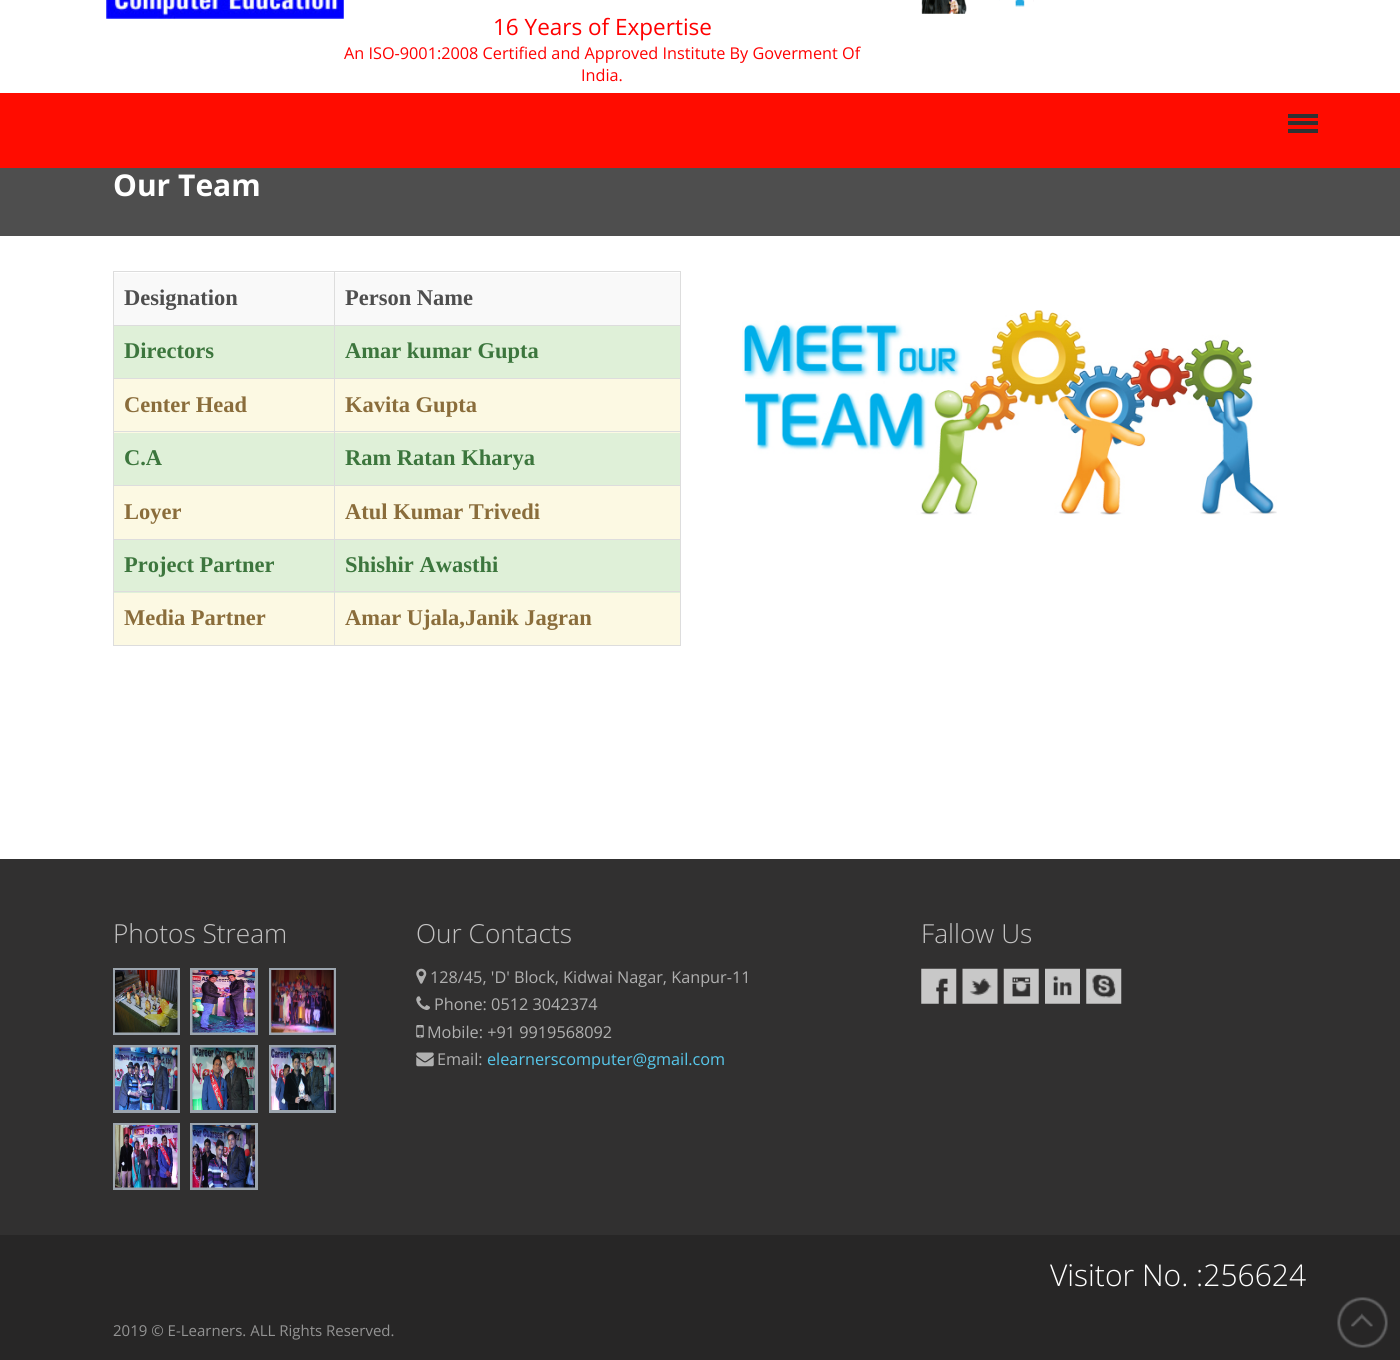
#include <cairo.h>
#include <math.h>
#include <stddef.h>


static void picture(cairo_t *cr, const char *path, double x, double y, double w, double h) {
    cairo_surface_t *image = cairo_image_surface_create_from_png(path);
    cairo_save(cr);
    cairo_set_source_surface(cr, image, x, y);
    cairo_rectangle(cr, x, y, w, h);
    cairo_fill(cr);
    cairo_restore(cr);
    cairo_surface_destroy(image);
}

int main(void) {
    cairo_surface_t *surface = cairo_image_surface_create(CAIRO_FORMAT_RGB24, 1400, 1360);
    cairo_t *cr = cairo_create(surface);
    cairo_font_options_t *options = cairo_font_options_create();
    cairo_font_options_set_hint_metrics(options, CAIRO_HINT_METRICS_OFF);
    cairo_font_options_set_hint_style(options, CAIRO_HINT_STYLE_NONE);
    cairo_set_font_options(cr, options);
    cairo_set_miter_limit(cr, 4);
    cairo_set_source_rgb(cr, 1, 1, 1);
    cairo_paint(cr);
    picture(cr, "img1.png", 106, 0, 238, 19);
    picture(cr, "img2.png", 921, 0, 113, 14);
    cairo_select_font_face(cr, "Open Sans", CAIRO_FONT_SLANT_NORMAL, CAIRO_FONT_WEIGHT_NORMAL);
    cairo_set_font_size(cr, 22.5);
    cairo_set_source_rgb(cr, 1, 0, 0);
    cairo_move_to(cr, 493, 35);
    cairo_show_text(cr, "16 Years of Expertise");
    cairo_set_font_size(cr, 16.25);
    cairo_move_to(cr, 344, 59);
    cairo_show_text(cr, "An ISO-9001:2008 Certified and Approved Institute By Goverment Of");
    cairo_move_to(cr, 581, 81);
    cairo_show_text(cr, "India.");
    cairo_set_source_rgb(cr, 1, 0.047, 0);
    cairo_rectangle(cr, 0, 93, 1400, 75);
    cairo_fill(cr);
    cairo_set_source_rgb(cr, 0.18, 0.196, 0.2);
    cairo_rectangle(cr, 1288, 121, 30, 4);
    cairo_fill(cr);
    cairo_rectangle(cr, 1288, 114, 30, 4);
    cairo_fill(cr);
    cairo_rectangle(cr, 1288, 129, 30, 4);
    cairo_fill(cr);
    cairo_set_source_rgb(cr, 0.306, 0.306, 0.306);
    cairo_rectangle(cr, 0, 168, 1400, 68);
    cairo_fill(cr);
    cairo_select_font_face(cr, "Open Sans", CAIRO_FONT_SLANT_NORMAL, CAIRO_FONT_WEIGHT_BOLD);
    cairo_set_font_size(cr, 30);
    cairo_set_source_rgb(cr, 1, 1, 1);
    cairo_move_to(cr, 113, 196);
    cairo_show_text(cr, "Our Team");
    cairo_set_source_rgb(cr, 0.867, 0.867, 0.867);
    cairo_rectangle(cr, 113, 271, 568, 1);
    cairo_fill(cr);
    cairo_rectangle(cr, 680, 271, 1, 375);
    cairo_fill(cr);
    cairo_rectangle(cr, 113, 645, 568, 1);
    cairo_fill(cr);
    cairo_rectangle(cr, 113, 271, 1, 375);
    cairo_fill(cr);
    cairo_set_source_rgb(cr, 0.976, 0.976, 0.976);
    cairo_rectangle(cr, 114, 273, 220, 52);
    cairo_fill(cr);
    cairo_select_font_face(cr, "Liberation Serif", CAIRO_FONT_SLANT_NORMAL, CAIRO_FONT_WEIGHT_BOLD);
    cairo_set_font_size(cr, 22.5);
    cairo_set_source_rgb(cr, 0.306, 0.306, 0.306);
    cairo_move_to(cr, 124, 305);
    cairo_show_text(cr, "Designation");
    cairo_set_source_rgb(cr, 0.976, 0.976, 0.976);
    cairo_rectangle(cr, 335, 273, 345, 52);
    cairo_fill(cr);
    cairo_set_source_rgb(cr, 0.867, 0.867, 0.867);
    cairo_rectangle(cr, 334, 325, 347, 1);
    cairo_fill(cr);
    cairo_rectangle(cr, 334, 378, 347, 1);
    cairo_fill(cr);
    cairo_set_source_rgb(cr, 0.988, 0.973, 0.89);
    cairo_rectangle(cr, 114, 379, 220, 54);
    cairo_fill(cr);
    cairo_rectangle(cr, 335, 379, 345, 54);
    cairo_fill(cr);
    cairo_set_source_rgb(cr, 0.867, 0.867, 0.867);
    cairo_rectangle(cr, 334, 431, 347, 1);
    cairo_fill(cr);
    cairo_rectangle(cr, 334, 485, 347, 1);
    cairo_fill(cr);
    cairo_rectangle(cr, 334, 539, 347, 1);
    cairo_fill(cr);
    cairo_set_source_rgb(cr, 0.875, 0.941, 0.847);
    cairo_rectangle(cr, 114, 540, 220, 53);
    cairo_fill(cr);
    cairo_rectangle(cr, 335, 540, 345, 53);
    cairo_fill(cr);
    cairo_set_source_rgb(cr, 0.867, 0.867, 0.867);
    cairo_rectangle(cr, 334, 591, 347, 1);
    cairo_fill(cr);
    cairo_rectangle(cr, 334, 591, 1, 55);
    cairo_fill(cr);
    cairo_rectangle(cr, 113, 591, 222, 1);
    cairo_fill(cr);
    cairo_rectangle(cr, 334, 539, 1, 54);
    cairo_fill(cr);
    cairo_rectangle(cr, 113, 539, 222, 1);
    cairo_fill(cr);
    cairo_rectangle(cr, 334, 485, 1, 55);
    cairo_fill(cr);
    cairo_rectangle(cr, 113, 485, 222, 1);
    cairo_fill(cr);
    cairo_rectangle(cr, 334, 431, 1, 55);
    cairo_fill(cr);
    cairo_rectangle(cr, 113, 431, 222, 1);
    cairo_fill(cr);
    cairo_rectangle(cr, 334, 378, 1, 55);
    cairo_fill(cr);
    cairo_rectangle(cr, 113, 378, 222, 1);
    cairo_fill(cr);
    cairo_rectangle(cr, 334, 325, 1, 54);
    cairo_fill(cr);
    cairo_rectangle(cr, 113, 325, 222, 1);
    cairo_fill(cr);
    cairo_rectangle(cr, 334, 271, 1, 55);
    cairo_fill(cr);
    cairo_set_source_rgb(cr, 0.306, 0.306, 0.306);
    cairo_move_to(cr, 345, 305);
    cairo_show_text(cr, "Person Name");
    cairo_set_source_rgb(cr, 0.875, 0.941, 0.847);
    cairo_rectangle(cr, 114, 326, 220, 52);
    cairo_fill(cr);
    cairo_set_source_rgb(cr, 0.235, 0.463, 0.239);
    cairo_move_to(cr, 124, 358);
    cairo_show_text(cr, "Directors");
    cairo_set_source_rgb(cr, 0.875, 0.941, 0.847);
    cairo_rectangle(cr, 335, 326, 345, 52);
    cairo_fill(cr);
    cairo_set_source_rgb(cr, 0.235, 0.463, 0.239);
    cairo_move_to(cr, 345, 358);
    cairo_show_text(cr, "Amar kumar Gupta");
    cairo_set_source_rgb(cr, 0.541, 0.427, 0.231);
    cairo_move_to(cr, 124, 412);
    cairo_show_text(cr, "Center Head");
    cairo_move_to(cr, 345, 412);
    cairo_show_text(cr, "Kavita Gupta");
    cairo_set_source_rgb(cr, 0.875, 0.941, 0.847);
    cairo_rectangle(cr, 114, 433, 220, 52);
    cairo_fill(cr);
    cairo_set_source_rgb(cr, 0.235, 0.463, 0.239);
    cairo_move_to(cr, 124, 465);
    cairo_show_text(cr, "C.A");
    cairo_set_source_rgb(cr, 0.875, 0.941, 0.847);
    cairo_rectangle(cr, 335, 433, 345, 52);
    cairo_fill(cr);
    cairo_set_source_rgb(cr, 0.235, 0.463, 0.239);
    cairo_move_to(cr, 345, 465);
    cairo_show_text(cr, "Ram Ratan Kharya");
    cairo_set_source_rgb(cr, 0.988, 0.973, 0.89);
    cairo_rectangle(cr, 114, 486, 220, 53);
    cairo_fill(cr);
    cairo_set_source_rgb(cr, 0.541, 0.427, 0.231);
    cairo_move_to(cr, 124, 519);
    cairo_show_text(cr, "Loyer");
    cairo_set_source_rgb(cr, 0.988, 0.973, 0.89);
    cairo_rectangle(cr, 335, 486, 345, 53);
    cairo_fill(cr);
    cairo_set_source_rgb(cr, 0.541, 0.427, 0.231);
    cairo_move_to(cr, 345, 519);
    cairo_show_text(cr, "Atul Kumar Trivedi");
    cairo_set_source_rgb(cr, 0.235, 0.463, 0.239);
    cairo_move_to(cr, 124, 572);
    cairo_show_text(cr, "Project Partner");
    cairo_move_to(cr, 345, 572);
    cairo_show_text(cr, "Shishir Awasthi");
    cairo_set_source_rgb(cr, 0.988, 0.973, 0.89);
    cairo_rectangle(cr, 114, 593, 220, 52);
    cairo_fill(cr);
    cairo_set_source_rgb(cr, 0.541, 0.427, 0.231);
    cairo_move_to(cr, 124, 625);
    cairo_show_text(cr, "Media Partner");
    cairo_set_source_rgb(cr, 0.988, 0.973, 0.89);
    cairo_rectangle(cr, 335, 593, 345, 52);
    cairo_fill(cr);
    cairo_set_source_rgb(cr, 0.541, 0.427, 0.231);
    cairo_move_to(cr, 345, 625);
    cairo_show_text(cr, "Amar Ujala,Janik Jagran");
    picture(cr, "img3.png", 742, 310, 535, 205);
    cairo_set_source_rgb(cr, 0.192, 0.188, 0.188);
    cairo_rectangle(cr, 0, 859, 1400, 376);
    cairo_fill(cr);
    cairo_select_font_face(cr, "Open Sans Light", CAIRO_FONT_SLANT_NORMAL, CAIRO_FONT_WEIGHT_NORMAL);
    cairo_set_font_size(cr, 26.25);
    cairo_set_source_rgb(cr, 0.761, 0.757, 0.757);
    cairo_move_to(cr, 113, 943);
    cairo_show_text(cr, "Photos Stream");
    cairo_rectangle(cr, 114.5, 969.5, 64, 64);
    cairo_set_source_rgb(cr, 0.612, 0.647, 0.682);
    cairo_set_line_width(cr, 3);
    cairo_stroke(cr);
    picture(cr, "img4.png", 115, 970, 63, 63);
    cairo_rectangle(cr, 191.5, 969.5, 65, 64);
    cairo_stroke(cr);
    picture(cr, "img5.png", 192, 970, 63, 63);
    cairo_rectangle(cr, 270.5, 969.5, 64, 64);
    cairo_stroke(cr);
    picture(cr, "img6.png", 271, 970, 63, 63);
    cairo_rectangle(cr, 114.5, 1046.5, 64, 65);
    cairo_stroke(cr);
    picture(cr, "img7.png", 115, 1047, 63, 63);
    cairo_rectangle(cr, 191.5, 1046.5, 65, 65);
    cairo_stroke(cr);
    picture(cr, "img8.png", 192, 1047, 63, 63);
    cairo_rectangle(cr, 270.5, 1046.5, 64, 65);
    cairo_stroke(cr);
    picture(cr, "img9.png", 271, 1047, 63, 63);
    cairo_rectangle(cr, 114.5, 1124.5, 64, 64);
    cairo_stroke(cr);
    picture(cr, "img10.png", 115, 1125, 63, 63);
    cairo_rectangle(cr, 191.5, 1124.5, 65, 64);
    cairo_stroke(cr);
    picture(cr, "img11.png", 192, 1125, 63, 63);
    cairo_set_source_rgb(cr, 0.761, 0.757, 0.757);
    cairo_move_to(cr, 416, 943);
    cairo_show_text(cr, "Our Contacts");
    picture(cr, "img12.png", 416, 968, 11, 16);
    cairo_select_font_face(cr, "Open Sans", CAIRO_FONT_SLANT_NORMAL, CAIRO_FONT_WEIGHT_NORMAL);
    cairo_set_font_size(cr, 16.25);
    cairo_set_source_rgb(cr, 0.69, 0.69, 0.69);
    cairo_move_to(cr, 430, 983);
    cairo_show_text(cr, "128/45, 'D' Block, Kidwai Nagar, Kanpur-11");
    picture(cr, "img13.png", 416, 996, 14, 14);
    cairo_move_to(cr, 434, 1010);
    cairo_show_text(cr, "Phone: 0512 3042374");
    picture(cr, "img14.png", 416, 1025, 8, 13);
    cairo_move_to(cr, 427, 1038);
    cairo_show_text(cr, "Mobile: +91 9919568092");
    picture(cr, "img15.png", 416, 1052, 18, 15);
    cairo_move_to(cr, 437, 1065);
    cairo_show_text(cr, "Email:");
    cairo_set_source_rgb(cr, 0.341, 0.784, 0.922);
    cairo_move_to(cr, 487, 1065);
    cairo_show_text(cr, "elearnerscomputer@gmail.com");
    cairo_select_font_face(cr, "Open Sans Light", CAIRO_FONT_SLANT_NORMAL, CAIRO_FONT_WEIGHT_NORMAL);
    cairo_set_font_size(cr, 26.25);
    cairo_set_source_rgb(cr, 0.761, 0.757, 0.757);
    cairo_move_to(cr, 921, 943);
    cairo_show_text(cr, "Fallow Us");
    picture(cr, "img16.png", 921, 968, 36, 36);
    picture(cr, "img17.png", 962, 968, 36, 36);
    picture(cr, "img18.png", 1003, 968, 36, 36);
    picture(cr, "img19.png", 1045, 968, 35, 36);
    picture(cr, "img20.png", 1086, 968, 36, 36);
    cairo_set_source_rgb(cr, 0.153, 0.149, 0.149);
    cairo_rectangle(cr, 0, 1235, 1400, 125);
    cairo_fill(cr);
    cairo_set_font_size(cr, 30);
    cairo_set_source_rgb(cr, 1, 1, 1);
    cairo_move_to(cr, 1050, 1286);
    cairo_show_text(cr, "Visitor No. :256624");
    cairo_select_font_face(cr, "Open Sans", CAIRO_FONT_SLANT_NORMAL, CAIRO_FONT_WEIGHT_NORMAL);
    cairo_set_font_size(cr, 15);
    cairo_set_source_rgb(cr, 0.576, 0.576, 0.576);
    cairo_move_to(cr, 113, 1336);
    cairo_show_text(cr, "2019 © E-Learners. ALL Rights Reserved.");
    picture(cr, "img21.png", 1337, 1297, 51, 51);
    cairo_surface_write_to_png(surface, "page.png");
    cairo_font_options_destroy(options);
    cairo_destroy(cr);
    cairo_surface_destroy(surface);
    return 0;
}
